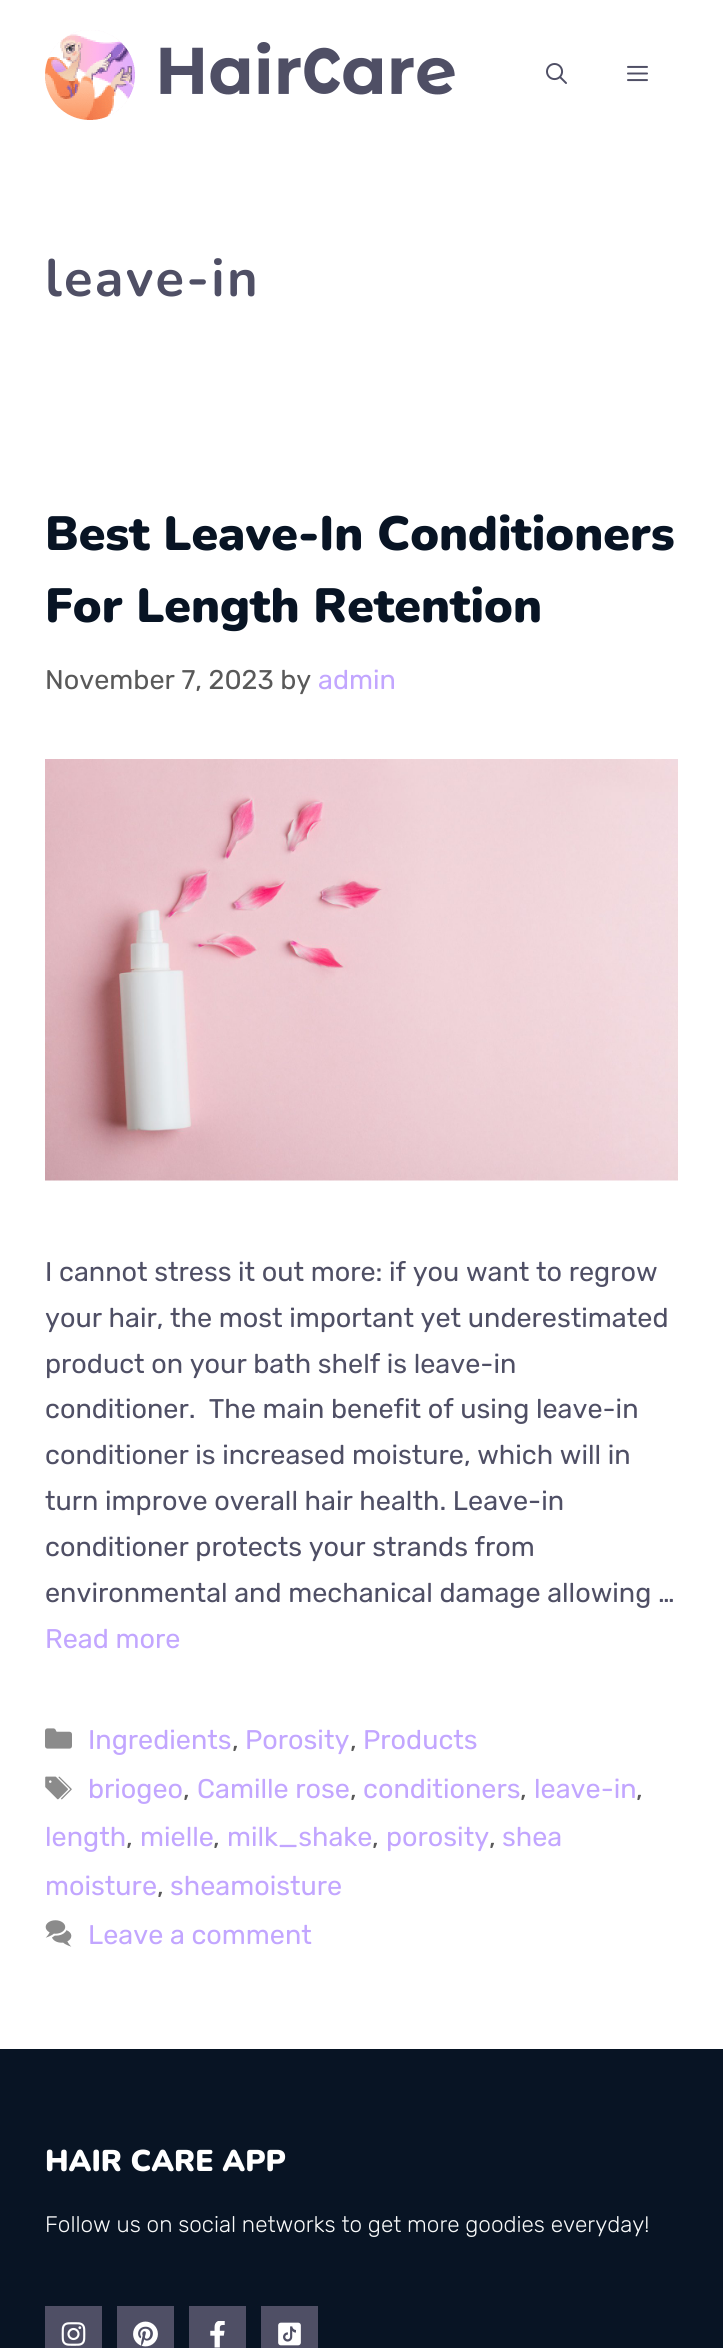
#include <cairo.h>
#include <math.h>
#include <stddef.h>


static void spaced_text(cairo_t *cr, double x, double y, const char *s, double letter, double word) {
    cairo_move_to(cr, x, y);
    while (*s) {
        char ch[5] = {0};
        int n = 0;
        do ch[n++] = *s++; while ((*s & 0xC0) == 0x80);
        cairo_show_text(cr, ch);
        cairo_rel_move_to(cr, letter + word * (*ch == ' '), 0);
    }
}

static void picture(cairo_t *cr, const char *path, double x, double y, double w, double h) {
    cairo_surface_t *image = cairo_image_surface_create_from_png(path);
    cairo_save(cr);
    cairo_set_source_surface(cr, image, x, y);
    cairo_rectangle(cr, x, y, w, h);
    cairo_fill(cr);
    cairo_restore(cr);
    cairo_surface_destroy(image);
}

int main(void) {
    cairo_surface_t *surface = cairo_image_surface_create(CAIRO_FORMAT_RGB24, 723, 2348);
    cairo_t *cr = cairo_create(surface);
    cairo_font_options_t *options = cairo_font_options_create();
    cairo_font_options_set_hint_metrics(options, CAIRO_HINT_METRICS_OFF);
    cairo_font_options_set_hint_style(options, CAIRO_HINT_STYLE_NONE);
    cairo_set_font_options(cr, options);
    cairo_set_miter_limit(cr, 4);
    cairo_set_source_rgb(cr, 1, 1, 1);
    cairo_paint(cr);
    picture(cr, "img1.png", 45, 30, 410, 90);
    picture(cr, "img2.png", 546, 63, 21, 21);
    picture(cr, "img3.png", 627, 65, 21, 17);
    cairo_select_font_face(cr, "Nunito", CAIRO_FONT_SLANT_NORMAL, CAIRO_FONT_WEIGHT_BOLD);
    cairo_set_font_size(cr, 52.5);
    cairo_set_source_rgb(cr, 0.31, 0.31, 0.396);
    spaced_text(cr, 45, 296, "leave-in", 2.25, 0);
    cairo_select_font_face(cr, "Nunito Black", CAIRO_FONT_SLANT_NORMAL, CAIRO_FONT_WEIGHT_NORMAL);
    cairo_set_font_size(cr, 48);
    cairo_set_source_rgb(cr, 0.035, 0.082, 0.141);
    cairo_move_to(cr, 45, 550);
    cairo_show_text(cr, "Best Leave-In Conditioners");
    cairo_move_to(cr, 45, 622);
    cairo_show_text(cr, "For Length Retention");
    cairo_select_font_face(cr, "Rubik", CAIRO_FONT_SLANT_NORMAL, CAIRO_FONT_WEIGHT_NORMAL);
    cairo_set_font_size(cr, 27);
    cairo_set_source_rgb(cr, 0.349, 0.349, 0.349);
    cairo_move_to(cr, 45, 689);
    cairo_show_text(cr, "November 7, 2023 by");
    cairo_set_source_rgb(cr, 0.761, 0.651, 1);
    cairo_move_to(cr, 318, 689);
    cairo_show_text(cr, "admin");
    picture(cr, "img4.png", 45, 759, 633, 422);
    cairo_set_source_rgb(cr, 0.31, 0.31, 0.396);
    cairo_move_to(cr, 45, 1281);
    cairo_show_text(cr, "I cannot stress it out more: if you want to regrow");
    cairo_move_to(cr, 45, 1327);
    cairo_show_text(cr, "your hair, the most important yet underestimated");
    cairo_move_to(cr, 45, 1373);
    cairo_show_text(cr, "product on your bath shelf is leave-in");
    cairo_move_to(cr, 45, 1418);
    cairo_show_text(cr, "conditioner.  The main benefit of using leave-in");
    cairo_move_to(cr, 45, 1464);
    cairo_show_text(cr, "conditioner is increased moisture, which will in");
    cairo_move_to(cr, 45, 1510);
    cairo_show_text(cr, "turn improve overall hair health. Leave-in");
    cairo_move_to(cr, 45, 1556);
    cairo_show_text(cr, "conditioner protects your strands from");
    cairo_move_to(cr, 45, 1602);
    cairo_show_text(cr, "environmental and mechanical damage allowing …");
    cairo_set_source_rgb(cr, 0.761, 0.651, 1);
    cairo_move_to(cr, 45, 1648);
    cairo_show_text(cr, "Read more");
    picture(cr, "img5.png", 45, 1728, 27, 21);
    cairo_move_to(cr, 88, 1749);
    cairo_show_text(cr, "Ingredients");
    cairo_set_source_rgb(cr, 0.349, 0.349, 0.349);
    cairo_move_to(cr, 232, 1749);
    cairo_show_text(cr, ",");
    cairo_set_source_rgb(cr, 0.761, 0.651, 1);
    cairo_move_to(cr, 245, 1749);
    cairo_show_text(cr, "Porosity");
    cairo_set_source_rgb(cr, 0.349, 0.349, 0.349);
    cairo_move_to(cr, 350, 1749);
    cairo_show_text(cr, ",");
    cairo_set_source_rgb(cr, 0.761, 0.651, 1);
    cairo_move_to(cr, 363, 1749);
    cairo_show_text(cr, "Products");
    picture(cr, "img6.png", 45, 1776, 27, 24);
    cairo_move_to(cr, 88, 1798);
    cairo_show_text(cr, "briogeo");
    cairo_set_source_rgb(cr, 0.349, 0.349, 0.349);
    cairo_move_to(cr, 183, 1798);
    cairo_show_text(cr, ",");
    cairo_set_source_rgb(cr, 0.761, 0.651, 1);
    cairo_move_to(cr, 197, 1798);
    cairo_show_text(cr, "Camille rose");
    cairo_set_source_rgb(cr, 0.349, 0.349, 0.349);
    cairo_move_to(cr, 350, 1798);
    cairo_show_text(cr, ",");
    cairo_set_source_rgb(cr, 0.761, 0.651, 1);
    cairo_move_to(cr, 363, 1798);
    cairo_show_text(cr, "conditioners");
    cairo_set_source_rgb(cr, 0.349, 0.349, 0.349);
    cairo_move_to(cr, 520, 1798);
    cairo_show_text(cr, ",");
    cairo_set_source_rgb(cr, 0.761, 0.651, 1);
    cairo_move_to(cr, 534, 1798);
    cairo_show_text(cr, "leave-in");
    cairo_set_source_rgb(cr, 0.349, 0.349, 0.349);
    cairo_move_to(cr, 636, 1798);
    cairo_show_text(cr, ",");
    cairo_set_source_rgb(cr, 0.761, 0.651, 1);
    cairo_move_to(cr, 45, 1846);
    cairo_show_text(cr, "length");
    cairo_set_source_rgb(cr, 0.349, 0.349, 0.349);
    cairo_move_to(cr, 126, 1846);
    cairo_show_text(cr, ",");
    cairo_set_source_rgb(cr, 0.761, 0.651, 1);
    cairo_move_to(cr, 140, 1846);
    cairo_show_text(cr, "mielle");
    cairo_set_source_rgb(cr, 0.349, 0.349, 0.349);
    cairo_move_to(cr, 213, 1846);
    cairo_show_text(cr, ",");
    cairo_set_source_rgb(cr, 0.761, 0.651, 1);
    cairo_move_to(cr, 227, 1846);
    cairo_show_text(cr, "milk_shake");
    cairo_set_source_rgb(cr, 0.349, 0.349, 0.349);
    cairo_move_to(cr, 372, 1846);
    cairo_show_text(cr, ",");
    cairo_set_source_rgb(cr, 0.761, 0.651, 1);
    cairo_move_to(cr, 386, 1846);
    cairo_show_text(cr, "porosity");
    cairo_set_source_rgb(cr, 0.349, 0.349, 0.349);
    cairo_move_to(cr, 489, 1846);
    cairo_show_text(cr, ",");
    cairo_set_source_rgb(cr, 0.761, 0.651, 1);
    cairo_move_to(cr, 502, 1846);
    cairo_show_text(cr, "shea");
    cairo_move_to(cr, 45, 1895);
    cairo_show_text(cr, "moisture");
    cairo_set_source_rgb(cr, 0.349, 0.349, 0.349);
    cairo_move_to(cr, 157, 1895);
    cairo_show_text(cr, ",");
    cairo_set_source_rgb(cr, 0.761, 0.651, 1);
    cairo_move_to(cr, 170, 1895);
    cairo_show_text(cr, "sheamoisture");
    picture(cr, "img7.png", 45, 1920, 27, 27);
    cairo_move_to(cr, 88, 1944);
    cairo_show_text(cr, "Leave a comment");
    cairo_set_source_rgb(cr, 0.035, 0.082, 0.141);
    cairo_rectangle(cr, 0, 2049, 723, 299);
    cairo_fill(cr);
    cairo_select_font_face(cr, "Nunito Black", CAIRO_FONT_SLANT_NORMAL, CAIRO_FONT_WEIGHT_NORMAL);
    cairo_set_font_size(cr, 30);
    cairo_set_source_rgb(cr, 1, 1, 1);
    cairo_move_to(cr, 45, 2171);
    cairo_show_text(cr, "HAIR CARE APP");
    cairo_select_font_face(cr, "Rubik Light", CAIRO_FONT_SLANT_NORMAL, CAIRO_FONT_WEIGHT_NORMAL);
    cairo_set_font_size(cr, 22.5);
    cairo_set_source_rgb(cr, 0.969, 0.973, 0.976);
    cairo_move_to(cr, 45, 2232);
    cairo_show_text(cr, "Follow us on social networks to get more goodies everyday!");
    cairo_set_source_rgb(cr, 0.31, 0.31, 0.396);
    cairo_rectangle(cr, 45, 2306, 57, 42);
    cairo_fill(cr);
    picture(cr, "img8.png", 61, 2322, 25, 24);
    cairo_rectangle(cr, 117, 2306, 57, 42);
    cairo_fill(cr);
    picture(cr, "img9.png", 133, 2321, 25, 26);
    cairo_rectangle(cr, 189, 2306, 57, 42);
    cairo_fill(cr);
    picture(cr, "img10.png", 210, 2321, 15, 27);
    cairo_rectangle(cr, 261, 2306, 57, 42);
    cairo_fill(cr);
    picture(cr, "img11.png", 278, 2322, 23, 24);
    cairo_surface_write_to_png(surface, "page.png");
    cairo_font_options_destroy(options);
    cairo_destroy(cr);
    cairo_surface_destroy(surface);
    return 0;
}
